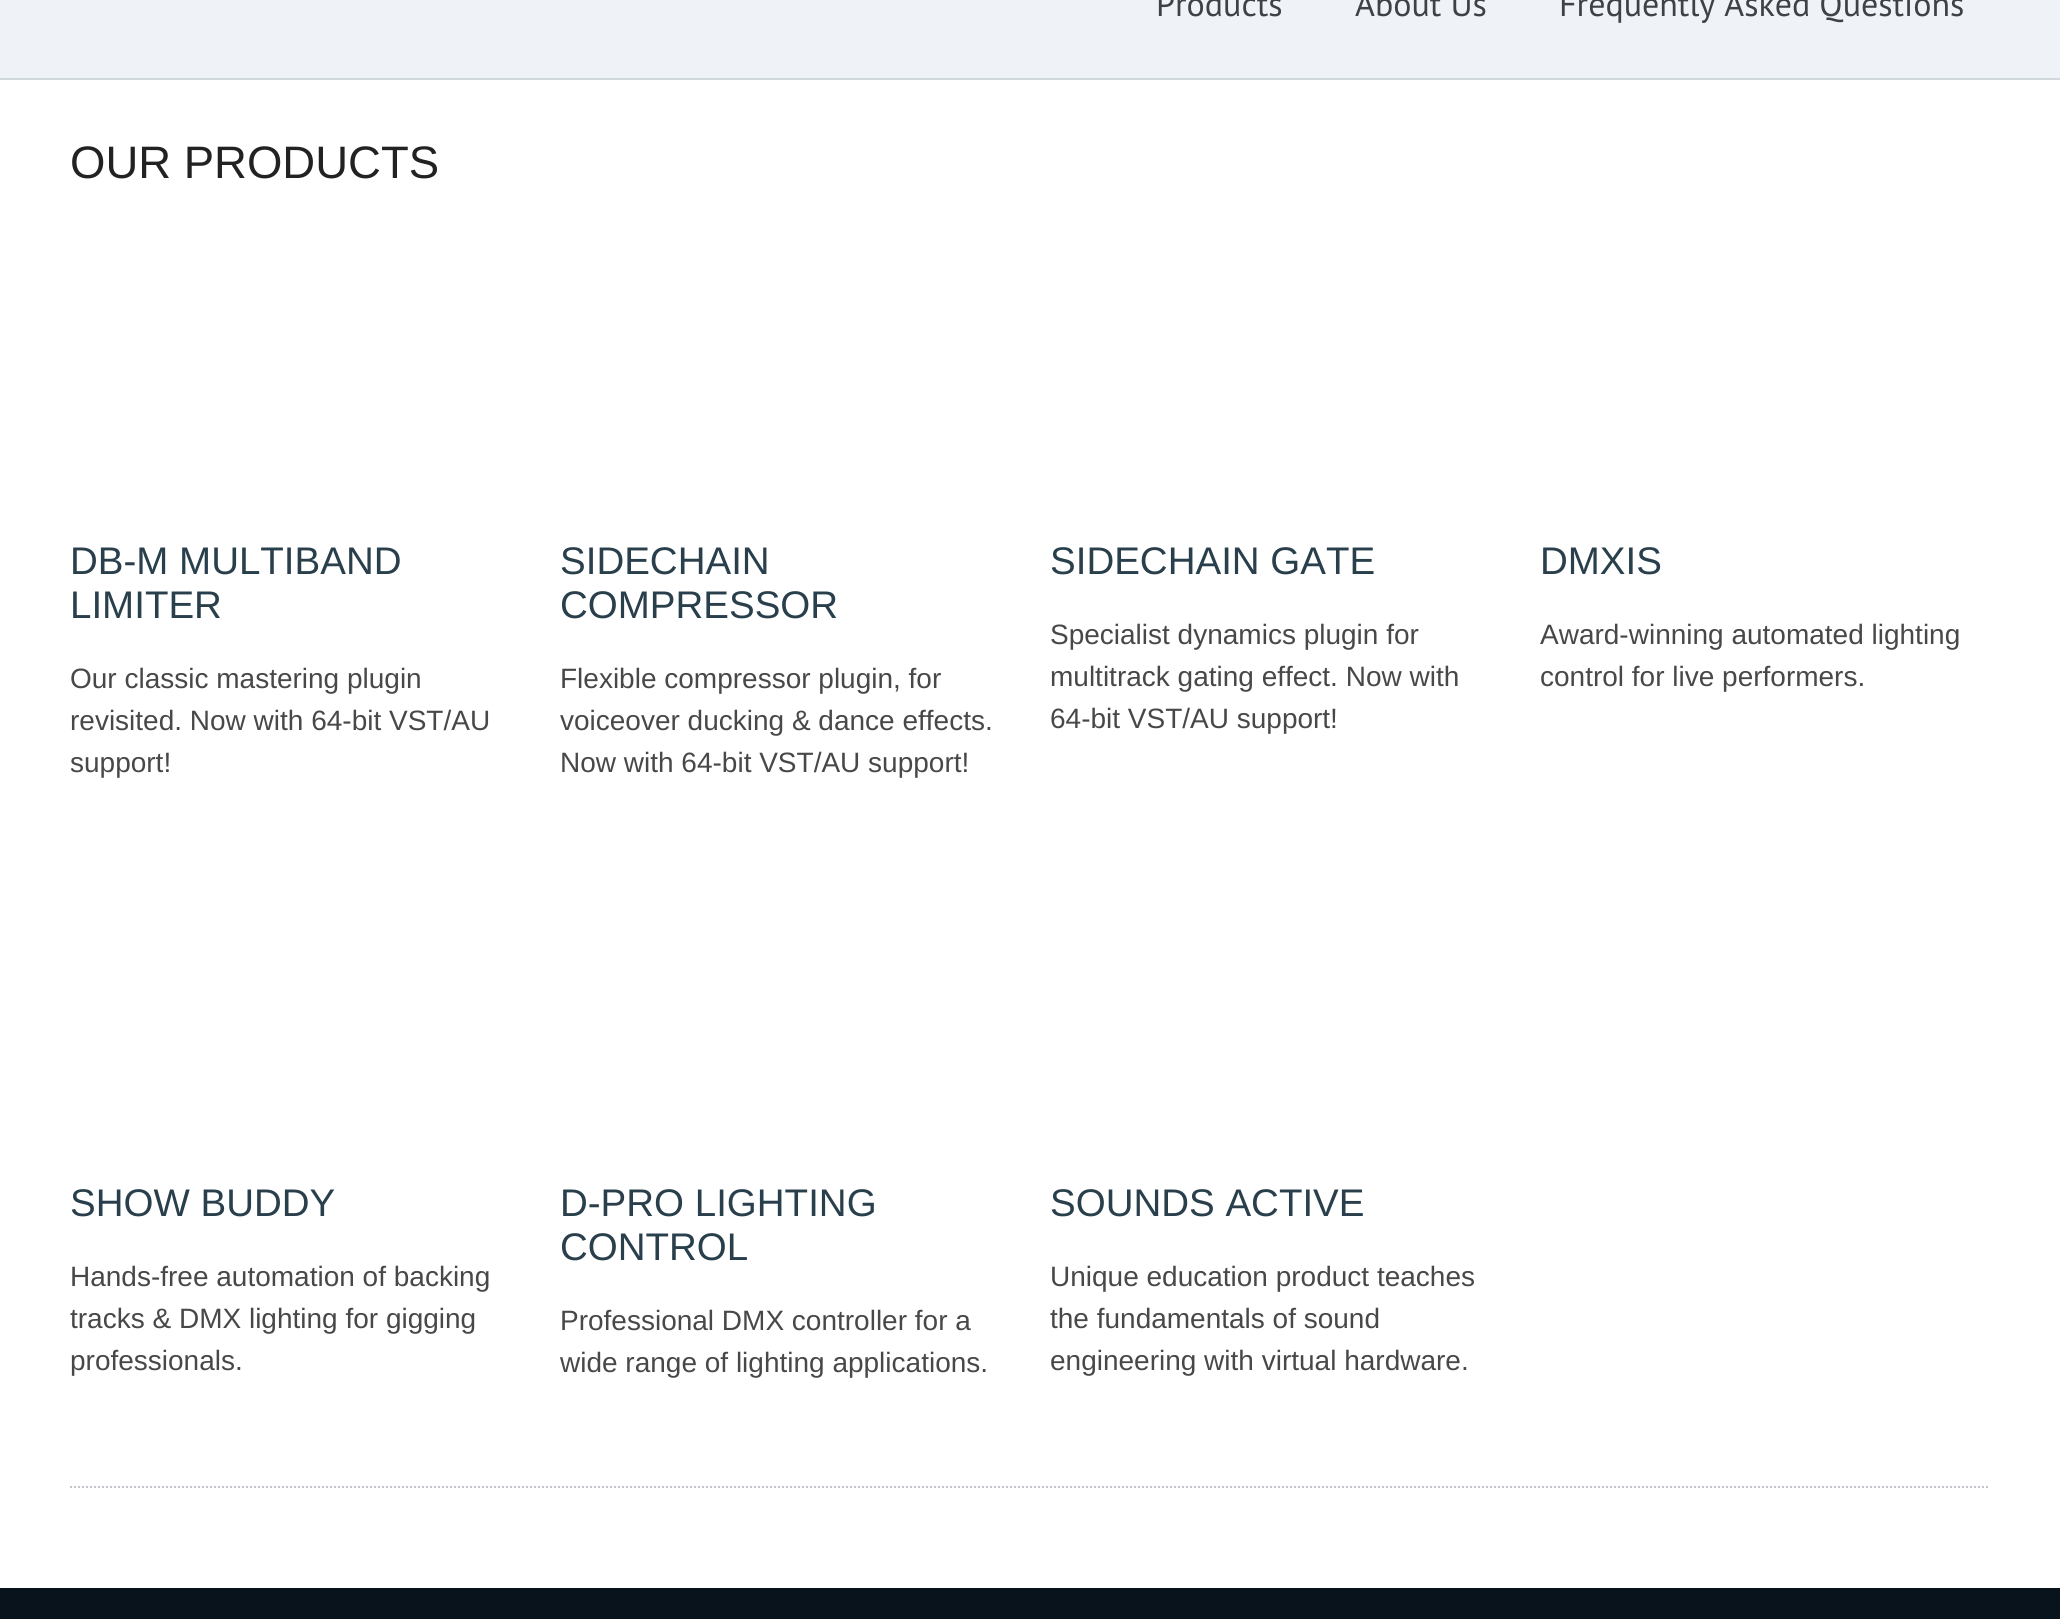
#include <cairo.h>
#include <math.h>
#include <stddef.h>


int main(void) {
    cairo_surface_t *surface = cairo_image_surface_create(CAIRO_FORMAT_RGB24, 2060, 1619);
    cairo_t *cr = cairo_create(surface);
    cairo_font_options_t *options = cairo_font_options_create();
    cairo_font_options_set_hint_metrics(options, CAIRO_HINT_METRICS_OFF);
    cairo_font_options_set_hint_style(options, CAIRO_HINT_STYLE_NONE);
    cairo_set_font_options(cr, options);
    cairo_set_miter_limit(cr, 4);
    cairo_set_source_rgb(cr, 1, 1, 1);
    cairo_paint(cr);
    cairo_set_source_rgb(cr, 0.937, 0.953, 0.969);
    cairo_rectangle(cr, 0, 0, 2060, 78);
    cairo_fill(cr);
    cairo_set_source_rgb(cr, 0.816, 0.847, 0.871);
    cairo_rectangle(cr, 0, 78, 2060, 2);
    cairo_fill(cr);
    cairo_select_font_face(cr, "PT Sans", CAIRO_FONT_SLANT_NORMAL, CAIRO_FONT_WEIGHT_NORMAL);
    cairo_set_font_size(cr, 34);
    cairo_set_source_rgb(cr, 0.243, 0.259, 0.271);
    cairo_move_to(cr, 1156, 16);
    cairo_show_text(cr, "Products");
    cairo_move_to(cr, 1355, 16);
    cairo_show_text(cr, "About Us");
    cairo_move_to(cr, 1559, 16);
    cairo_show_text(cr, "Frequently Asked Questions");
    cairo_new_path(cr);
    cairo_move_to(cr, 70, 1487);
    cairo_line_to(cr, 1990, 1487);
    cairo_set_source_rgb(cr, 0.749, 0.773, 0.792);
    cairo_set_dash(cr, (double[]){2, 2}, 2, 0);
    cairo_stroke(cr);
    cairo_select_font_face(cr, "Liberation Sans", CAIRO_FONT_SLANT_NORMAL, CAIRO_FONT_WEIGHT_NORMAL);
    cairo_set_font_size(cr, 45.5);
    cairo_set_source_rgb(cr, 0.133, 0.133, 0.133);
    cairo_move_to(cr, 70, 178);
    cairo_show_text(cr, "OUR PRODUCTS");
    cairo_set_font_size(cr, 38.5);
    cairo_set_source_rgb(cr, 0.161, 0.247, 0.298);
    cairo_move_to(cr, 70, 574);
    cairo_show_text(cr, "DB-M MULTIBAND");
    cairo_move_to(cr, 70, 618);
    cairo_show_text(cr, "LIMITER");
    cairo_set_font_size(cr, 28);
    cairo_set_source_rgb(cr, 0.282, 0.282, 0.282);
    cairo_move_to(cr, 70, 688);
    cairo_show_text(cr, "Our classic mastering plugin");
    cairo_move_to(cr, 70, 730);
    cairo_show_text(cr, "revisited. Now with 64-bit VST/AU");
    cairo_move_to(cr, 70, 772);
    cairo_show_text(cr, "support!");
    cairo_set_font_size(cr, 38.5);
    cairo_set_source_rgb(cr, 0.161, 0.247, 0.298);
    cairo_move_to(cr, 560, 574);
    cairo_show_text(cr, "SIDECHAIN");
    cairo_move_to(cr, 560, 618);
    cairo_show_text(cr, "COMPRESSOR");
    cairo_set_font_size(cr, 28);
    cairo_set_source_rgb(cr, 0.282, 0.282, 0.282);
    cairo_move_to(cr, 560, 688);
    cairo_show_text(cr, "Flexible compressor plugin, for");
    cairo_move_to(cr, 560, 730);
    cairo_show_text(cr, "voiceover ducking & dance effects.");
    cairo_move_to(cr, 560, 772);
    cairo_show_text(cr, "Now with 64-bit VST/AU support!");
    cairo_set_font_size(cr, 38.5);
    cairo_set_source_rgb(cr, 0.161, 0.247, 0.298);
    cairo_move_to(cr, 1050, 574);
    cairo_show_text(cr, "SIDECHAIN GATE");
    cairo_set_font_size(cr, 28);
    cairo_set_source_rgb(cr, 0.282, 0.282, 0.282);
    cairo_move_to(cr, 1050, 644);
    cairo_show_text(cr, "Specialist dynamics plugin for");
    cairo_move_to(cr, 1050, 686);
    cairo_show_text(cr, "multitrack gating effect. Now with");
    cairo_move_to(cr, 1050, 728);
    cairo_show_text(cr, "64-bit VST/AU support!");
    cairo_set_font_size(cr, 38.5);
    cairo_set_source_rgb(cr, 0.161, 0.247, 0.298);
    cairo_move_to(cr, 1540, 574);
    cairo_show_text(cr, "DMXIS");
    cairo_set_font_size(cr, 28);
    cairo_set_source_rgb(cr, 0.282, 0.282, 0.282);
    cairo_move_to(cr, 1540, 644);
    cairo_show_text(cr, "Award-winning automated lighting");
    cairo_move_to(cr, 1540, 686);
    cairo_show_text(cr, "control for live performers.");
    cairo_set_font_size(cr, 38.5);
    cairo_set_source_rgb(cr, 0.161, 0.247, 0.298);
    cairo_move_to(cr, 70, 1216);
    cairo_show_text(cr, "SHOW BUDDY");
    cairo_set_font_size(cr, 28);
    cairo_set_source_rgb(cr, 0.282, 0.282, 0.282);
    cairo_move_to(cr, 70, 1286);
    cairo_show_text(cr, "Hands-free automation of backing");
    cairo_move_to(cr, 70, 1328);
    cairo_show_text(cr, "tracks & DMX lighting for gigging");
    cairo_move_to(cr, 70, 1370);
    cairo_show_text(cr, "professionals.");
    cairo_set_font_size(cr, 38.5);
    cairo_set_source_rgb(cr, 0.161, 0.247, 0.298);
    cairo_move_to(cr, 560, 1216);
    cairo_show_text(cr, "D-PRO LIGHTING");
    cairo_move_to(cr, 560, 1260);
    cairo_show_text(cr, "CONTROL");
    cairo_set_font_size(cr, 28);
    cairo_set_source_rgb(cr, 0.282, 0.282, 0.282);
    cairo_move_to(cr, 560, 1330);
    cairo_show_text(cr, "Professional DMX controller for a");
    cairo_move_to(cr, 560, 1372);
    cairo_show_text(cr, "wide range of lighting applications.");
    cairo_set_font_size(cr, 38.5);
    cairo_set_source_rgb(cr, 0.161, 0.247, 0.298);
    cairo_move_to(cr, 1050, 1216);
    cairo_show_text(cr, "SOUNDS ACTIVE");
    cairo_set_font_size(cr, 28);
    cairo_set_source_rgb(cr, 0.282, 0.282, 0.282);
    cairo_move_to(cr, 1050, 1286);
    cairo_show_text(cr, "Unique education product teaches");
    cairo_move_to(cr, 1050, 1328);
    cairo_show_text(cr, "the fundamentals of sound");
    cairo_move_to(cr, 1050, 1370);
    cairo_show_text(cr, "engineering with virtual hardware.");
    cairo_set_source_rgb(cr, 0.039, 0.075, 0.106);
    cairo_rectangle(cr, 0, 1588, 2060, 31);
    cairo_fill(cr);
    cairo_surface_write_to_png(surface, "page.png");
    cairo_font_options_destroy(options);
    cairo_destroy(cr);
    cairo_surface_destroy(surface);
    return 0;
}
